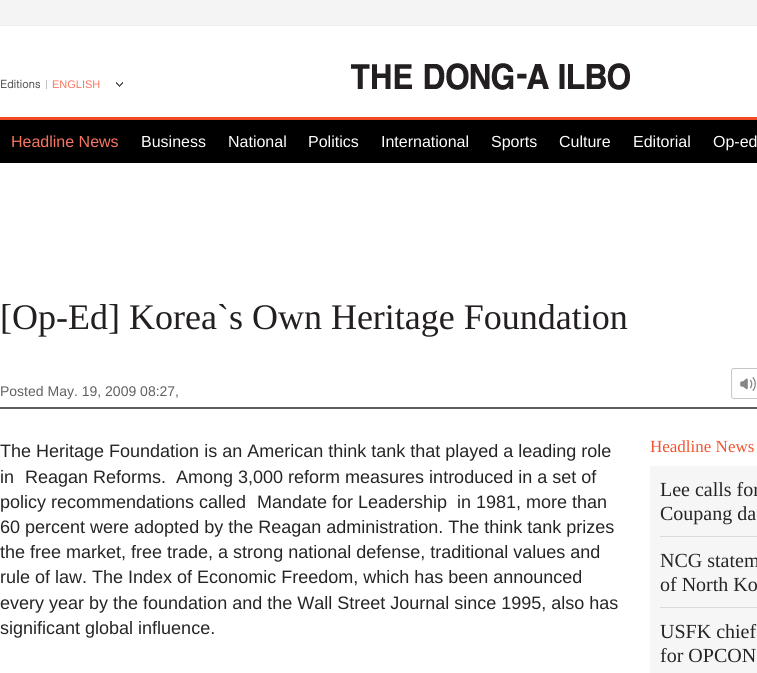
#include <cairo.h>
#include <math.h>
#include <stddef.h>


static void picture(cairo_t *cr, const char *path, double x, double y, double w, double h) {
    cairo_surface_t *image = cairo_image_surface_create_from_png(path);
    cairo_save(cr);
    cairo_set_source_surface(cr, image, x, y);
    cairo_rectangle(cr, x, y, w, h);
    cairo_fill(cr);
    cairo_restore(cr);
    cairo_surface_destroy(image);
}

int main(void) {
    cairo_surface_t *surface = cairo_image_surface_create(CAIRO_FORMAT_RGB24, 757, 673);
    cairo_t *cr = cairo_create(surface);
    cairo_font_options_t *options = cairo_font_options_create();
    cairo_font_options_set_hint_metrics(options, CAIRO_HINT_METRICS_OFF);
    cairo_font_options_set_hint_style(options, CAIRO_HINT_STYLE_NONE);
    cairo_set_font_options(cr, options);
    cairo_set_miter_limit(cr, 4);
    cairo_set_source_rgb(cr, 1, 1, 1);
    cairo_paint(cr);
    cairo_set_source_rgb(cr, 0.957, 0.957, 0.957);
    cairo_rectangle(cr, 0, 0, 757, 25);
    cairo_fill(cr);
    cairo_set_source_rgb(cr, 0.933, 0.933, 0.933);
    cairo_rectangle(cr, 0, 25, 757, 1);
    cairo_fill(cr);
    cairo_set_source_rgb(cr, 0.753, 0.753, 0.753);
    cairo_rectangle(cr, 46, 80, 1, 9);
    cairo_fill(cr);
    cairo_select_font_face(cr, "Dotum", CAIRO_FONT_SLANT_NORMAL, CAIRO_FONT_WEIGHT_BOLD);
    cairo_set_font_size(cr, 11);
    cairo_set_source_rgb(cr, 0.341, 0.341, 0.341);
    cairo_move_to(cr, 0, 88);
    cairo_show_text(cr, "Editions");
    picture(cr, "img1.png", 116, 82, 7, 5);
    cairo_select_font_face(cr, "Liberation Sans", CAIRO_FONT_SLANT_NORMAL, CAIRO_FONT_WEIGHT_NORMAL);
    cairo_set_source_rgb(cr, 0.969, 0.463, 0.376);
    cairo_move_to(cr, 52, 88);
    cairo_show_text(cr, "ENGLISH");
    picture(cr, "img2.png", 351, 63, 279, 27);
    cairo_set_source_rgb(cr, 0, 0, 0);
    cairo_rectangle(cr, 0, 120, 757, 43);
    cairo_fill(cr);
    cairo_set_source_rgb(cr, 0.937, 0.29, 0.141);
    cairo_rectangle(cr, 0, 117, 757, 3);
    cairo_fill(cr);
    cairo_set_font_size(cr, 16);
    cairo_set_source_rgb(cr, 0.969, 0.463, 0.376);
    cairo_move_to(cr, 11, 147);
    cairo_show_text(cr, "Headline News");
    cairo_set_source_rgb(cr, 1, 1, 1);
    cairo_move_to(cr, 141, 147);
    cairo_show_text(cr, "Business");
    cairo_move_to(cr, 228, 147);
    cairo_show_text(cr, "National");
    cairo_move_to(cr, 308, 147);
    cairo_show_text(cr, "Politics");
    cairo_move_to(cr, 381, 147);
    cairo_show_text(cr, "International");
    cairo_move_to(cr, 491, 147);
    cairo_show_text(cr, "Sports");
    cairo_move_to(cr, 559, 147);
    cairo_show_text(cr, "Culture");
    cairo_move_to(cr, 633, 147);
    cairo_show_text(cr, "Editorial");
    cairo_move_to(cr, 713, 147);
    cairo_show_text(cr, "Op-ed");
    cairo_set_source_rgb(cr, 0.369, 0.365, 0.365);
    cairo_rectangle(cr, 0, 407, 757, 2);
    cairo_fill(cr);
    cairo_select_font_face(cr, "Liberation Serif", CAIRO_FONT_SLANT_NORMAL, CAIRO_FONT_WEIGHT_NORMAL);
    cairo_set_font_size(cr, 36);
    cairo_set_source_rgb(cr, 0.137, 0.122, 0.125);
    cairo_move_to(cr, 0, 329);
    cairo_show_text(cr, "[Op-Ed] Korea`s Own Heritage Foundation");
    cairo_select_font_face(cr, "Liberation Sans", CAIRO_FONT_SLANT_NORMAL, CAIRO_FONT_WEIGHT_NORMAL);
    cairo_set_font_size(cr, 14);
    cairo_set_source_rgb(cr, 0.376, 0.376, 0.376);
    cairo_move_to(cr, 0, 396);
    cairo_show_text(cr, "Posted May. 19, 2009 08:27,");
    picture(cr, "img3.png", 731, 368, 26, 31);
    cairo_set_font_size(cr, 18);
    cairo_set_source_rgb(cr, 0.145, 0.145, 0.145);
    cairo_move_to(cr, 0, 457);
    cairo_show_text(cr, "The Heritage Foundation is an American think tank that played a leading role");
    cairo_move_to(cr, 0, 483);
    cairo_show_text(cr, "in");
    cairo_move_to(cr, 25, 483);
    cairo_show_text(cr, "Reagan Reforms.");
    cairo_move_to(cr, 176, 483);
    cairo_show_text(cr, "Among 3,000 reform measures introduced in a set of");
    cairo_move_to(cr, 0, 508);
    cairo_show_text(cr, "policy recommendations called");
    cairo_move_to(cr, 257, 508);
    cairo_show_text(cr, "Mandate for Leadership");
    cairo_move_to(cr, 457, 508);
    cairo_show_text(cr, "in 1981, more than");
    cairo_move_to(cr, 0, 533);
    cairo_show_text(cr, "60 percent were adopted by the Reagan administration. The think tank prizes");
    cairo_move_to(cr, 0, 558);
    cairo_show_text(cr, "the free market, free trade, a strong national defense, traditional values and");
    cairo_move_to(cr, 0, 583);
    cairo_show_text(cr, "rule of law. The Index of Economic Freedom, which has been announced");
    cairo_move_to(cr, 0, 609);
    cairo_show_text(cr, "every year by the foundation and the Wall Street Journal since 1995, also has");
    cairo_move_to(cr, 0, 634);
    cairo_show_text(cr, "significant global influence.");
    cairo_select_font_face(cr, "Liberation Serif", CAIRO_FONT_SLANT_NORMAL, CAIRO_FONT_WEIGHT_NORMAL);
    cairo_set_font_size(cr, 17);
    cairo_set_source_rgb(cr, 0.949, 0.329, 0.188);
    cairo_move_to(cr, 650, 452);
    cairo_show_text(cr, "Headline News");
    cairo_set_source_rgb(cr, 0.961, 0.961, 0.961);
    cairo_rectangle(cr, 650, 466, 107, 207);
    cairo_fill(cr);
    cairo_set_font_size(cr, 20);
    cairo_set_source_rgb(cr, 0.145, 0.145, 0.145);
    cairo_move_to(cr, 660, 496);
    cairo_show_text(cr, "Lee calls for");
    cairo_move_to(cr, 660, 520);
    cairo_show_text(cr, "Coupang da");
    cairo_set_source_rgb(cr, 0.859, 0.859, 0.859);
    cairo_rectangle(cr, 660, 536, 97, 1);
    cairo_fill(cr);
    cairo_set_source_rgb(cr, 0.145, 0.145, 0.145);
    cairo_move_to(cr, 660, 567);
    cairo_show_text(cr, "NCG statem");
    cairo_move_to(cr, 660, 591);
    cairo_show_text(cr, "of North Ko");
    cairo_set_source_rgb(cr, 0.859, 0.859, 0.859);
    cairo_rectangle(cr, 660, 607, 97, 1);
    cairo_fill(cr);
    cairo_set_source_rgb(cr, 0.145, 0.145, 0.145);
    cairo_move_to(cr, 660, 638);
    cairo_show_text(cr, "USFK chief");
    cairo_move_to(cr, 660, 662);
    cairo_show_text(cr, "for OPCON");
    cairo_surface_write_to_png(surface, "page.png");
    cairo_font_options_destroy(options);
    cairo_destroy(cr);
    cairo_surface_destroy(surface);
    return 0;
}
